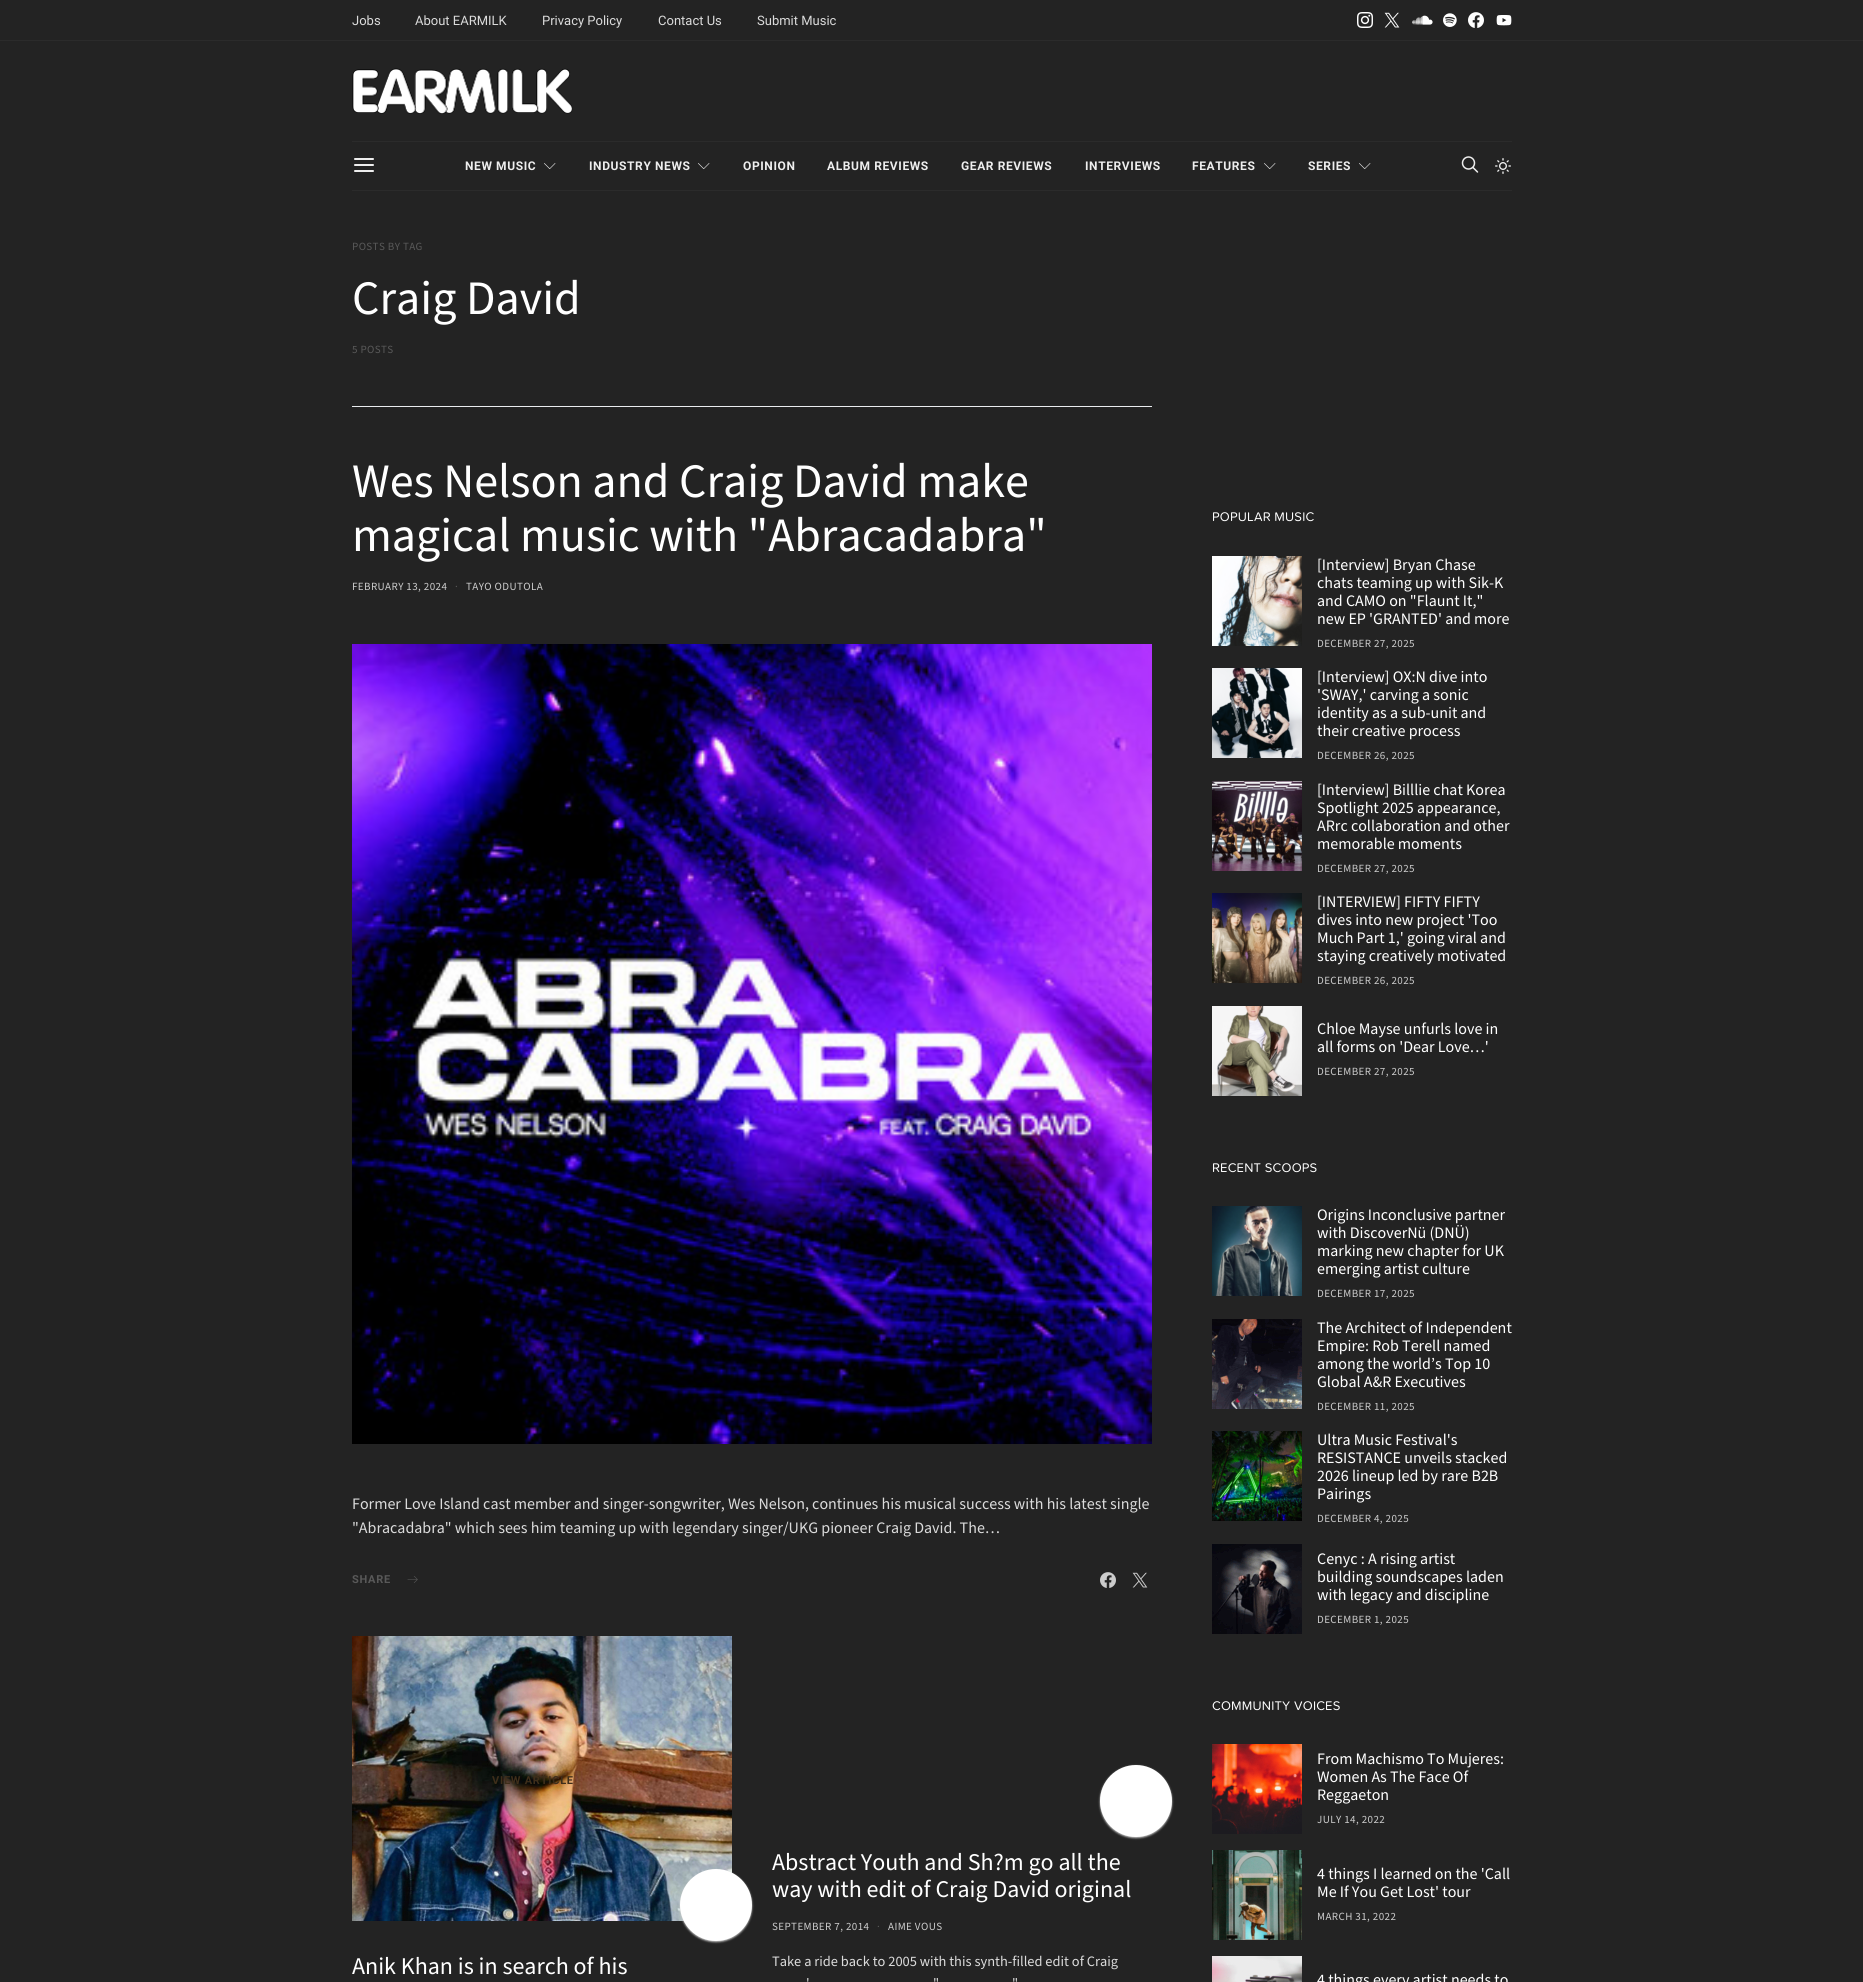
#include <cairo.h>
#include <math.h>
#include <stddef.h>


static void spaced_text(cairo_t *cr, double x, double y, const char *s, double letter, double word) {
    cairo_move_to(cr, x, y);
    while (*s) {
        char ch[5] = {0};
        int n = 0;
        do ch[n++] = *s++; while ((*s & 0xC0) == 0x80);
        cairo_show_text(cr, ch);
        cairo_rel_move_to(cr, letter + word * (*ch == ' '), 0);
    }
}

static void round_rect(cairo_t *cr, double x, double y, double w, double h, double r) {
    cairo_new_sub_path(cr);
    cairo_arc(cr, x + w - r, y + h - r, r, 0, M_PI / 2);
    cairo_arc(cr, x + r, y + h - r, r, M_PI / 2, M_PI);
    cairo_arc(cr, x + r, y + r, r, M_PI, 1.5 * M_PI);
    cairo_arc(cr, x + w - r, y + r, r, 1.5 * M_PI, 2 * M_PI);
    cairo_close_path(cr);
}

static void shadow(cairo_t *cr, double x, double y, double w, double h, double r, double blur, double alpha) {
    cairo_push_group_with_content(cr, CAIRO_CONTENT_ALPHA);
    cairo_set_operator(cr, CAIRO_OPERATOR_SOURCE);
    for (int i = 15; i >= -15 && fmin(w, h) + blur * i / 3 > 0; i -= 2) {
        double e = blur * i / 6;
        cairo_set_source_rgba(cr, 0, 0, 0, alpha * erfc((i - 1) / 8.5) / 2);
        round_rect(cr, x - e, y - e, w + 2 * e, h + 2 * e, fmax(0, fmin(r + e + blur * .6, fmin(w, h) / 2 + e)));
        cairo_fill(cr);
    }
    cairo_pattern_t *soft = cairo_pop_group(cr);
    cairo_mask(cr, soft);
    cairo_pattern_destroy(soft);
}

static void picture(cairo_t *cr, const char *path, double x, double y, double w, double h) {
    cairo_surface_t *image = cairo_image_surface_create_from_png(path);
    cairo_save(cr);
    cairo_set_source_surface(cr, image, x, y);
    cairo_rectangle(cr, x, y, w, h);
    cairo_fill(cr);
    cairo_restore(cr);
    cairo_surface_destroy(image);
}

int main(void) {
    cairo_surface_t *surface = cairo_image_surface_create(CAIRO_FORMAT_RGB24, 1863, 1982);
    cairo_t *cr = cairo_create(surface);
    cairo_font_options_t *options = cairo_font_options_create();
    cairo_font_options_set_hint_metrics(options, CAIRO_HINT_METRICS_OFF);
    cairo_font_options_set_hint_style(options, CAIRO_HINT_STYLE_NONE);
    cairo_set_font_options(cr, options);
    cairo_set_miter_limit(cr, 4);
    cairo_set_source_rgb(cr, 0.137, 0.137, 0.137);
    cairo_paint(cr);
    cairo_set_source_rgb(cr, 0.169, 0.169, 0.169);
    cairo_rectangle(cr, 0, 40, 1863, 1);
    cairo_fill(cr);
    cairo_select_font_face(cr, "Roboto", CAIRO_FONT_SLANT_NORMAL, CAIRO_FONT_WEIGHT_NORMAL);
    cairo_set_font_size(cr, 13);
    cairo_set_source_rgb(cr, 0.859, 0.859, 0.859);
    cairo_move_to(cr, 352, 25);
    cairo_show_text(cr, "Jobs");
    cairo_move_to(cr, 415, 25);
    cairo_show_text(cr, "About EARMILK");
    cairo_move_to(cr, 542, 25);
    cairo_show_text(cr, "Privacy Policy");
    cairo_move_to(cr, 658, 25);
    cairo_show_text(cr, "Contact Us");
    cairo_move_to(cr, 757, 25);
    cairo_show_text(cr, "Submit Music");
    picture(cr, "img1.png", 1357, 12, 16, 16);
    picture(cr, "img2.png", 1384, 12, 16, 16);
    picture(cr, "img3.png", 1412, 15, 21, 10);
    picture(cr, "img4.png", 1443, 13, 14, 14);
    picture(cr, "img5.png", 1468, 12, 16, 16);
    picture(cr, "img6.png", 1496, 15, 16, 11);
    picture(cr, "img7.png", 352, 68, 221, 46);
    cairo_set_source_rgb(cr, 0.169, 0.169, 0.169);
    cairo_rectangle(cr, 352, 141, 1160, 1);
    cairo_fill(cr);
    cairo_rectangle(cr, 352, 190, 1160, 1);
    cairo_fill(cr);
    picture(cr, "img8.png", 354, 158, 20, 14);
    cairo_select_font_face(cr, "Roboto", CAIRO_FONT_SLANT_NORMAL, CAIRO_FONT_WEIGHT_BOLD);
    cairo_set_font_size(cr, 12);
    cairo_set_source_rgb(cr, 0.933, 0.933, 0.933);
    spaced_text(cr, 465, 170, "NEW MUSIC", 0.6, 0);
    picture(cr, "img9.png", 544, 163, 12, 6);
    spaced_text(cr, 589, 170, "INDUSTRY NEWS", 0.6, 0);
    picture(cr, "img9.png", 698, 163, 12, 6);
    spaced_text(cr, 743, 170, "OPINION", 0.6, 0);
    spaced_text(cr, 827, 170, "ALBUM REVIEWS", 0.6, 0);
    spaced_text(cr, 961, 170, "GEAR REVIEWS", 0.6, 0);
    spaced_text(cr, 1085, 170, "INTERVIEWS", 0.6, 0);
    spaced_text(cr, 1192, 170, "FEATURES", 0.6, 0);
    picture(cr, "img9.png", 1264, 163, 12, 6);
    spaced_text(cr, 1308, 170, "SERIES", 0.6, 0);
    picture(cr, "img9.png", 1359, 163, 12, 6);
    picture(cr, "img10.png", 1461, 156, 18, 17);
    picture(cr, "img11.png", 1495, 158, 16, 16);
    cairo_select_font_face(cr, "Source Sans Pro", CAIRO_FONT_SLANT_NORMAL, CAIRO_FONT_WEIGHT_NORMAL);
    cairo_set_font_size(cr, 11);
    cairo_set_source_rgb(cr, 0.349, 0.349, 0.349);
    spaced_text(cr, 352, 250, "POSTS BY TAG", 0.4, 0);
    cairo_set_font_size(cr, 48);
    cairo_set_source_rgb(cr, 1, 1, 1);
    cairo_move_to(cr, 352, 314);
    cairo_show_text(cr, "Craig David");
    cairo_set_font_size(cr, 11);
    cairo_set_source_rgb(cr, 0.349, 0.349, 0.349);
    spaced_text(cr, 352, 353, "5 POSTS", 0.4, 0);
    cairo_set_source_rgb(cr, 0.914, 0.925, 0.937);
    cairo_rectangle(cr, 352, 406, 800, 1);
    cairo_fill(cr);
    cairo_set_font_size(cr, 48);
    cairo_set_source_rgb(cr, 1, 1, 1);
    cairo_move_to(cr, 352, 497);
    cairo_show_text(cr, "Wes Nelson and Craig David make");
    cairo_move_to(cr, 352, 551);
    cairo_show_text(cr, "magical music with \"Abracadabra\"");
    cairo_set_font_size(cr, 11);
    cairo_set_source_rgb(cr, 0.8, 0.8, 0.8);
    spaced_text(cr, 352, 590, "FEBRUARY 13, 2024", 0.4, 0);
    cairo_set_source_rgb(cr, 0.349, 0.349, 0.349);
    spaced_text(cr, 455, 590, "·", 0.4, 0);
    cairo_set_source_rgb(cr, 0.8, 0.8, 0.8);
    spaced_text(cr, 466, 590, "TAYO ODUTOLA", 0.4, 0);
    picture(cr, "img12.png", 352, 644, 800, 800);
    cairo_set_font_size(cr, 16);
    cairo_set_source_rgb(cr, 0.859, 0.859, 0.859);
    cairo_move_to(cr, 352, 1509);
    cairo_show_text(cr, "Former Love Island cast member and singer-songwriter, Wes Nelson, continues his musical success with his latest single");
    cairo_move_to(cr, 352, 1533);
    cairo_show_text(cr, "\"Abracadabra\" which sees him teaming up with legendary singer/UKG pioneer Craig David. The…");
    cairo_select_font_face(cr, "Roboto", CAIRO_FONT_SLANT_NORMAL, CAIRO_FONT_WEIGHT_BOLD);
    cairo_set_font_size(cr, 11);
    cairo_set_source_rgb(cr, 0.349, 0.349, 0.349);
    spaced_text(cr, 352, 1583, "SHARE", 0.75, 0);
    picture(cr, "img13.png", 407, 1576, 11, 7);
    picture(cr, "img14.png", 1100, 1572, 16, 16);
    picture(cr, "img15.png", 1132, 1572, 16, 16);
    picture(cr, "img16.png", 352, 1636, 380, 285);
    cairo_set_source_rgb(cr, 0.243, 0.18, 0.102);
    spaced_text(cr, 492, 1784, "VIEW ARTICLE", 0.75, 0);
    cairo_set_source_rgb(cr, 0.8, 0.8, 0.8);
    shadow(cr, 680, 1870, 72, 72, 36, 1, 1);
    cairo_set_source_rgb(cr, 1, 1, 1);
    cairo_arc(cr, 716, 1905, 36, 0, 2 * M_PI);
    cairo_fill(cr);
    cairo_select_font_face(cr, "Source Sans Pro", CAIRO_FONT_SLANT_NORMAL, CAIRO_FONT_WEIGHT_NORMAL);
    cairo_set_font_size(cr, 24);
    cairo_move_to(cr, 352, 1974);
    cairo_show_text(cr, "Anik Khan is in search of his");
    cairo_set_source_rgb(cr, 0.8, 0.8, 0.8);
    shadow(cr, 1100, 1766, 72, 72, 36, 1, 1);
    cairo_set_source_rgb(cr, 1, 1, 1);
    cairo_arc(cr, 1136, 1801, 36, 0, 2 * M_PI);
    cairo_fill(cr);
    cairo_move_to(cr, 772, 1870);
    cairo_show_text(cr, "Abstract Youth and Sh?m go all the");
    cairo_move_to(cr, 772, 1897);
    cairo_show_text(cr, "way with edit of Craig David original");
    cairo_set_font_size(cr, 11);
    cairo_set_source_rgb(cr, 0.8, 0.8, 0.8);
    spaced_text(cr, 772, 1930, "SEPTEMBER 7, 2014", 0.4, 0);
    cairo_set_source_rgb(cr, 0.349, 0.349, 0.349);
    spaced_text(cr, 877, 1930, "·", 0.4, 0);
    cairo_set_source_rgb(cr, 0.8, 0.8, 0.8);
    spaced_text(cr, 888, 1930, "AIME VOUS", 0.4, 0);
    cairo_set_font_size(cr, 14.4);
    cairo_set_source_rgb(cr, 0.859, 0.859, 0.859);
    cairo_move_to(cr, 772, 1966);
    cairo_show_text(cr, "Take a ride back to 2005 with this synth-filled edit of Craig");
    cairo_move_to(cr, 806, 1988);
    cairo_show_text(cr, "'");
    cairo_move_to(cr, 933, 1988);
    cairo_show_text(cr, "\"");
    cairo_move_to(cr, 1012, 1988);
    cairo_show_text(cr, "\"");
    cairo_select_font_face(cr, "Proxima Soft", CAIRO_FONT_SLANT_NORMAL, CAIRO_FONT_WEIGHT_NORMAL);
    cairo_set_font_size(cr, 13);
    cairo_set_source_rgb(cr, 1, 1, 1);
    spaced_text(cr, 1212, 521, "POPULAR MUSIC", 0.2, 0);
    picture(cr, "img17.png", 1212, 556, 90, 90);
    cairo_select_font_face(cr, "Source Sans Pro", CAIRO_FONT_SLANT_NORMAL, CAIRO_FONT_WEIGHT_NORMAL);
    cairo_set_font_size(cr, 16);
    cairo_move_to(cr, 1317, 570);
    cairo_show_text(cr, "[Interview] Bryan Chase");
    cairo_move_to(cr, 1317, 588);
    cairo_show_text(cr, "chats teaming up with Sik-K");
    cairo_move_to(cr, 1317, 606);
    cairo_show_text(cr, "and CAMO on \"Flaunt It,\"");
    cairo_move_to(cr, 1317, 624);
    cairo_show_text(cr, "new EP 'GRANTED' and more");
    cairo_set_font_size(cr, 11);
    cairo_set_source_rgb(cr, 0.8, 0.8, 0.8);
    spaced_text(cr, 1317, 647, "DECEMBER 27, 2025", 0.4, 0);
    picture(cr, "img18.png", 1212, 668, 90, 90);
    cairo_set_font_size(cr, 16);
    cairo_set_source_rgb(cr, 1, 1, 1);
    cairo_move_to(cr, 1317, 682);
    cairo_show_text(cr, "[Interview] OX:N dive into");
    cairo_move_to(cr, 1317, 700);
    cairo_show_text(cr, "'SWAY,' carving a sonic");
    cairo_move_to(cr, 1317, 718);
    cairo_show_text(cr, "identity as a sub-unit and");
    cairo_move_to(cr, 1317, 736);
    cairo_show_text(cr, "their creative process");
    cairo_set_font_size(cr, 11);
    cairo_set_source_rgb(cr, 0.8, 0.8, 0.8);
    spaced_text(cr, 1317, 759, "DECEMBER 26, 2025", 0.4, 0);
    picture(cr, "img19.png", 1212, 781, 90, 90);
    cairo_set_font_size(cr, 16);
    cairo_set_source_rgb(cr, 1, 1, 1);
    cairo_move_to(cr, 1317, 795);
    cairo_show_text(cr, "[Interview] Billlie chat Korea");
    cairo_move_to(cr, 1317, 813);
    cairo_show_text(cr, "Spotlight 2025 appearance,");
    cairo_move_to(cr, 1317, 831);
    cairo_show_text(cr, "ARrc collaboration and other");
    cairo_move_to(cr, 1317, 849);
    cairo_show_text(cr, "memorable moments");
    cairo_set_font_size(cr, 11);
    cairo_set_source_rgb(cr, 0.8, 0.8, 0.8);
    spaced_text(cr, 1317, 872, "DECEMBER 27, 2025", 0.4, 0);
    picture(cr, "img20.png", 1212, 893, 90, 90);
    cairo_set_font_size(cr, 16);
    cairo_set_source_rgb(cr, 1, 1, 1);
    cairo_move_to(cr, 1317, 907);
    cairo_show_text(cr, "[INTERVIEW] FIFTY FIFTY");
    cairo_move_to(cr, 1317, 925);
    cairo_show_text(cr, "dives into new project 'Too");
    cairo_move_to(cr, 1317, 943);
    cairo_show_text(cr, "Much Part 1,' going viral and");
    cairo_move_to(cr, 1317, 961);
    cairo_show_text(cr, "staying creatively motivated");
    cairo_set_font_size(cr, 11);
    cairo_set_source_rgb(cr, 0.8, 0.8, 0.8);
    spaced_text(cr, 1317, 984, "DECEMBER 26, 2025", 0.4, 0);
    picture(cr, "img21.png", 1212, 1006, 90, 90);
    cairo_set_font_size(cr, 16);
    cairo_set_source_rgb(cr, 1, 1, 1);
    cairo_move_to(cr, 1317, 1034);
    cairo_show_text(cr, "Chloe Mayse unfurls love in");
    cairo_move_to(cr, 1317, 1052);
    cairo_show_text(cr, "all forms on 'Dear Love…'");
    cairo_set_font_size(cr, 11);
    cairo_set_source_rgb(cr, 0.8, 0.8, 0.8);
    spaced_text(cr, 1317, 1075, "DECEMBER 27, 2025", 0.4, 0);
    cairo_select_font_face(cr, "Proxima Soft", CAIRO_FONT_SLANT_NORMAL, CAIRO_FONT_WEIGHT_NORMAL);
    cairo_set_font_size(cr, 13);
    cairo_set_source_rgb(cr, 1, 1, 1);
    spaced_text(cr, 1212, 1172, "RECENT SCOOPS", 0.2, 0);
    picture(cr, "img22.png", 1212, 1206, 90, 90);
    cairo_select_font_face(cr, "Source Sans Pro", CAIRO_FONT_SLANT_NORMAL, CAIRO_FONT_WEIGHT_NORMAL);
    cairo_set_font_size(cr, 16);
    cairo_move_to(cr, 1317, 1220);
    cairo_show_text(cr, "Origins Inconclusive partner");
    cairo_move_to(cr, 1317, 1238);
    cairo_show_text(cr, "with DiscoverNü (DNÜ)");
    cairo_move_to(cr, 1317, 1256);
    cairo_show_text(cr, "marking new chapter for UK");
    cairo_move_to(cr, 1317, 1274);
    cairo_show_text(cr, "emerging artist culture");
    cairo_set_font_size(cr, 11);
    cairo_set_source_rgb(cr, 0.8, 0.8, 0.8);
    spaced_text(cr, 1317, 1297, "DECEMBER 17, 2025", 0.4, 0);
    picture(cr, "img23.png", 1212, 1319, 90, 90);
    cairo_set_font_size(cr, 16);
    cairo_set_source_rgb(cr, 1, 1, 1);
    cairo_move_to(cr, 1317, 1333);
    cairo_show_text(cr, "The Architect of Independent");
    cairo_move_to(cr, 1317, 1351);
    cairo_show_text(cr, "Empire: Rob Terell named");
    cairo_move_to(cr, 1317, 1369);
    cairo_show_text(cr, "among the world’s Top 10");
    cairo_move_to(cr, 1317, 1387);
    cairo_show_text(cr, "Global A&R Executives");
    cairo_set_font_size(cr, 11);
    cairo_set_source_rgb(cr, 0.8, 0.8, 0.8);
    spaced_text(cr, 1317, 1410, "DECEMBER 11, 2025", 0.4, 0);
    picture(cr, "img24.png", 1212, 1431, 90, 90);
    cairo_set_font_size(cr, 16);
    cairo_set_source_rgb(cr, 1, 1, 1);
    cairo_move_to(cr, 1317, 1445);
    cairo_show_text(cr, "Ultra Music Festival's");
    cairo_move_to(cr, 1317, 1463);
    cairo_show_text(cr, "RESISTANCE unveils stacked");
    cairo_move_to(cr, 1317, 1481);
    cairo_show_text(cr, "2026 lineup led by rare B2B");
    cairo_move_to(cr, 1317, 1499);
    cairo_show_text(cr, "Pairings");
    cairo_set_font_size(cr, 11);
    cairo_set_source_rgb(cr, 0.8, 0.8, 0.8);
    spaced_text(cr, 1317, 1522, "DECEMBER 4, 2025", 0.4, 0);
    picture(cr, "img25.png", 1212, 1544, 90, 90);
    cairo_set_font_size(cr, 16);
    cairo_set_source_rgb(cr, 1, 1, 1);
    cairo_move_to(cr, 1317, 1564);
    cairo_show_text(cr, "Cenyc : A rising artist");
    cairo_move_to(cr, 1317, 1582);
    cairo_show_text(cr, "building soundscapes laden");
    cairo_move_to(cr, 1317, 1600);
    cairo_show_text(cr, "with legacy and discipline");
    cairo_set_font_size(cr, 11);
    cairo_set_source_rgb(cr, 0.8, 0.8, 0.8);
    spaced_text(cr, 1317, 1623, "DECEMBER 1, 2025", 0.4, 0);
    cairo_select_font_face(cr, "Proxima Soft", CAIRO_FONT_SLANT_NORMAL, CAIRO_FONT_WEIGHT_NORMAL);
    cairo_set_font_size(cr, 13);
    cairo_set_source_rgb(cr, 1, 1, 1);
    spaced_text(cr, 1212, 1710, "COMMUNITY VOICES", 0.2, 0);
    picture(cr, "img26.png", 1212, 1744, 90, 90);
    cairo_select_font_face(cr, "Source Sans Pro", CAIRO_FONT_SLANT_NORMAL, CAIRO_FONT_WEIGHT_NORMAL);
    cairo_set_font_size(cr, 16);
    cairo_move_to(cr, 1317, 1764);
    cairo_show_text(cr, "From Machismo To Mujeres:");
    cairo_move_to(cr, 1317, 1782);
    cairo_show_text(cr, "Women As The Face Of");
    cairo_move_to(cr, 1317, 1800);
    cairo_show_text(cr, "Reggaeton");
    cairo_set_font_size(cr, 11);
    cairo_set_source_rgb(cr, 0.8, 0.8, 0.8);
    spaced_text(cr, 1317, 1823, "JULY 14, 2022", 0.4, 0);
    picture(cr, "img27.png", 1212, 1850, 90, 90);
    cairo_set_font_size(cr, 16);
    cairo_set_source_rgb(cr, 1, 1, 1);
    cairo_move_to(cr, 1317, 1879);
    cairo_show_text(cr, "4 things I learned on the 'Call");
    cairo_move_to(cr, 1317, 1897);
    cairo_show_text(cr, "Me If You Get Lost' tour");
    cairo_set_font_size(cr, 11);
    cairo_set_source_rgb(cr, 0.8, 0.8, 0.8);
    spaced_text(cr, 1317, 1920, "MARCH 31, 2022", 0.4, 0);
    picture(cr, "img28.png", 1212, 1956, 90, 26);
    cairo_set_font_size(cr, 16);
    cairo_set_source_rgb(cr, 1, 1, 1);
    cairo_move_to(cr, 1317, 1985);
    cairo_show_text(cr, "4 things every artist needs to");
    cairo_surface_write_to_png(surface, "page.png");
    cairo_font_options_destroy(options);
    cairo_destroy(cr);
    cairo_surface_destroy(surface);
    return 0;
}
